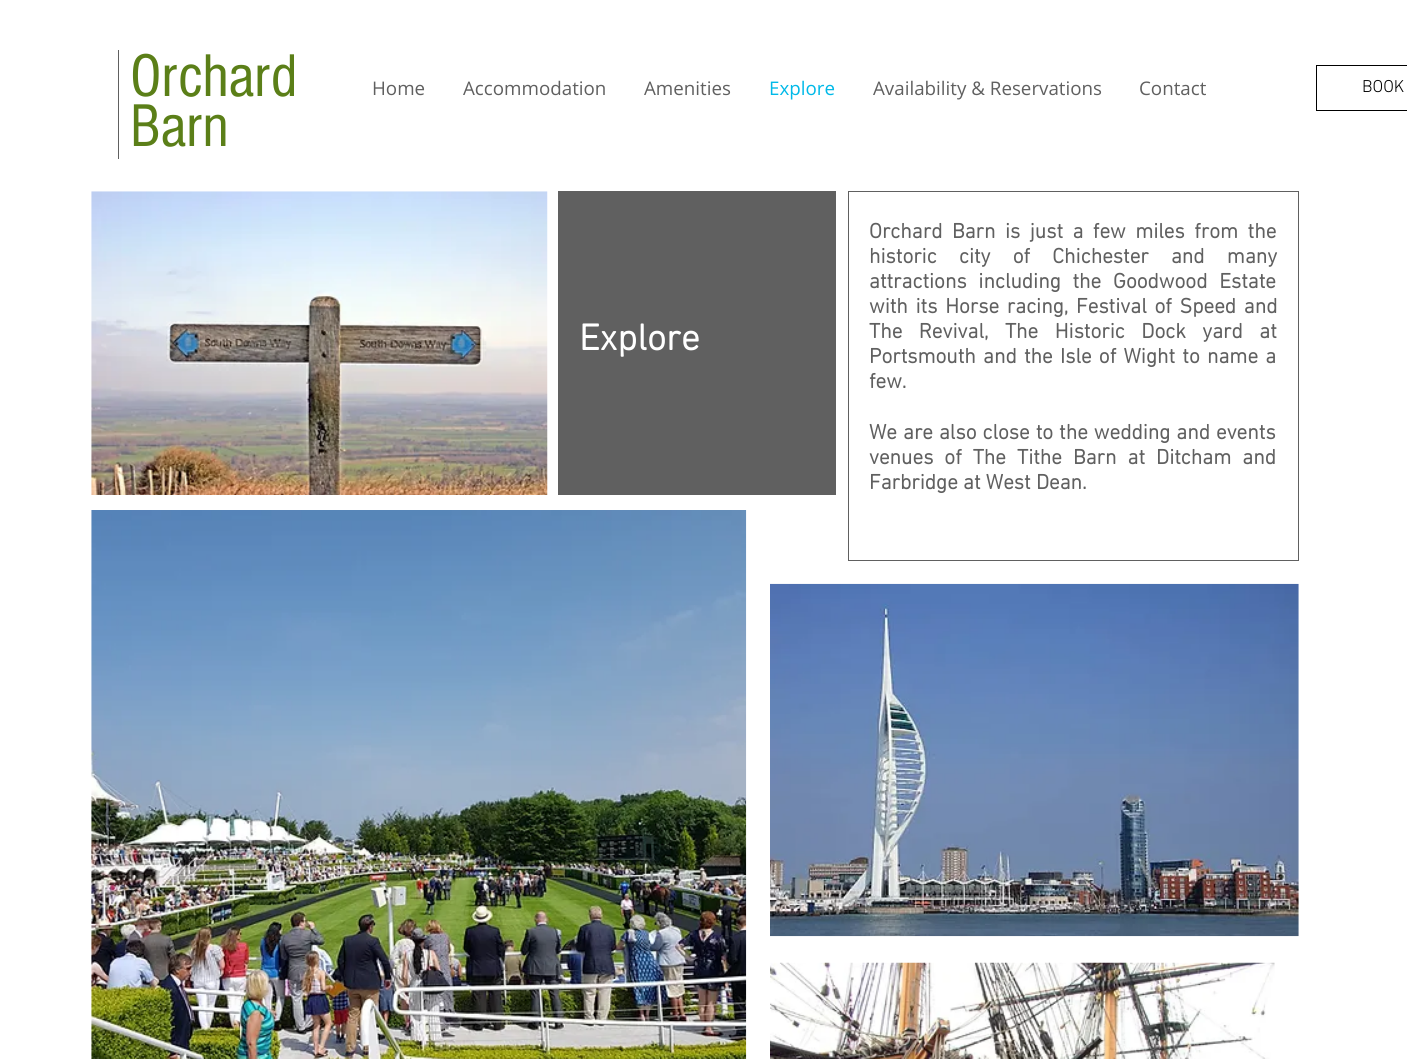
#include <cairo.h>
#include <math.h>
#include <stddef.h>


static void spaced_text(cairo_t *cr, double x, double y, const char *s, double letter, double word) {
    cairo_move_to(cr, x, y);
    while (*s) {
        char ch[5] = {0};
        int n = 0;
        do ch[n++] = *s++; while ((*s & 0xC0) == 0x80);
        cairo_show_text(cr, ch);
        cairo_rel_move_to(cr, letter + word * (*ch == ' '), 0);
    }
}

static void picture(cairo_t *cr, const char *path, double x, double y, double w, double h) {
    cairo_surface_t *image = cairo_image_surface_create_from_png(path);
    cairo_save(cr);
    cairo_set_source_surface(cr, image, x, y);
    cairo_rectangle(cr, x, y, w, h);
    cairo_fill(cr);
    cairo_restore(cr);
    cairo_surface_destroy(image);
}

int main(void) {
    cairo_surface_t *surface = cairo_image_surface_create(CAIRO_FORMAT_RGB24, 1407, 1059);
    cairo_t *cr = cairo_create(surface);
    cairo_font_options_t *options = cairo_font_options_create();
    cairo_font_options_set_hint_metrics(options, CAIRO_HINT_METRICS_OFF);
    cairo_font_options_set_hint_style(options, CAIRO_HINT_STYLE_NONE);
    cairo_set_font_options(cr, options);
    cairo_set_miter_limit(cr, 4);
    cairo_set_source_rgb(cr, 1, 1, 1);
    cairo_paint(cr);
    cairo_set_source_rgb(cr, 0.376, 0.376, 0.376);
    cairo_rectangle(cr, 118, 50, 1, 109);
    cairo_fill(cr);
    cairo_select_font_face(cr, "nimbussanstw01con", CAIRO_FONT_SLANT_NORMAL, CAIRO_FONT_WEIGHT_NORMAL);
    cairo_set_font_size(cr, 62.5);
    cairo_set_source_rgb(cr, 0.357, 0.498, 0.094);
    cairo_move_to(cr, 130, 96);
    cairo_show_text(cr, "Orchard");
    cairo_move_to(cr, 130, 146);
    cairo_show_text(cr, "Barn");
    cairo_select_font_face(cr, "Open Sans", CAIRO_FONT_SLANT_NORMAL, CAIRO_FONT_WEIGHT_NORMAL);
    cairo_set_font_size(cr, 18.75);
    cairo_set_source_rgb(cr, 0.376, 0.376, 0.376);
    cairo_move_to(cr, 372, 95);
    cairo_show_text(cr, "Home");
    cairo_move_to(cr, 463, 95);
    cairo_show_text(cr, "Accommodation");
    cairo_move_to(cr, 644, 95);
    cairo_show_text(cr, "Amenities");
    cairo_set_source_rgb(cr, 0, 0.725, 0.91);
    cairo_move_to(cr, 769, 95);
    cairo_show_text(cr, "Explore");
    cairo_set_source_rgb(cr, 0.376, 0.376, 0.376);
    cairo_move_to(cr, 873, 95);
    cairo_show_text(cr, "Availability & Reservations");
    cairo_move_to(cr, 1139, 95);
    cairo_show_text(cr, "Contact");
    cairo_rectangle(cr, 1316.5, 65.5, 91, 45);
    cairo_set_source_rgb(cr, 0, 0, 0);
    cairo_set_line_width(cr, 1);
    cairo_stroke(cr);
    cairo_select_font_face(cr, "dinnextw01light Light", CAIRO_FONT_SLANT_NORMAL, CAIRO_FONT_WEIGHT_NORMAL);
    cairo_set_font_size(cr, 17.5);
    cairo_move_to(cr, 1362, 92);
    cairo_show_text(cr, "BOOK");
    picture(cr, "img1.png", 91, 191, 457, 304);
    cairo_set_source_rgb(cr, 0.376, 0.376, 0.376);
    cairo_rectangle(cr, 558, 191, 278, 304);
    cairo_fill(cr);
    cairo_select_font_face(cr, "dinnextw01light", CAIRO_FONT_SLANT_NORMAL, CAIRO_FONT_WEIGHT_BOLD);
    cairo_set_font_size(cr, 37.5);
    cairo_set_source_rgb(cr, 1, 1, 1);
    cairo_move_to(cr, 579, 350);
    cairo_show_text(cr, "Explore");
    cairo_rectangle(cr, 848.5, 191.5, 450, 369);
    cairo_set_source_rgb(cr, 0.376, 0.376, 0.376);
    cairo_stroke(cr);
    cairo_set_font_size(cr, 21.25);
    spaced_text(cr, 869, 238, "Orchard Barn is just a few miles from the", 0, 4.25);
    spaced_text(cr, 869, 263, "historic city of Chichester and many", 0, 17);
    spaced_text(cr, 869, 288, "attractions including the Goodwood Estate", 0, 6.5);
    spaced_text(cr, 869, 313, "with its Horse racing, Festival of Speed and", 0, 2.5);
    spaced_text(cr, 869, 338, "The Revival, The Historic Dock yard at", 0, 11.25);
    spaced_text(cr, 869, 363, "Portsmouth and the Isle of Wight to name a", 0, 2);
    cairo_move_to(cr, 869, 388);
    cairo_show_text(cr, "few.");
    spaced_text(cr, 869, 439, "We are also close to the wedding and events", 0, 0.75);
    spaced_text(cr, 869, 464, "venues of The Tithe Barn at Ditcham and", 0, 5.75);
    cairo_move_to(cr, 869, 489);
    cairo_show_text(cr, "Farbridge at West Dean.");
    picture(cr, "img2.png", 91, 510, 656, 549);
    picture(cr, "img3.png", 770, 583, 529, 354);
    picture(cr, "img4.png", 770, 962, 505, 97);
    cairo_surface_write_to_png(surface, "page.png");
    cairo_font_options_destroy(options);
    cairo_destroy(cr);
    cairo_surface_destroy(surface);
    return 0;
}
